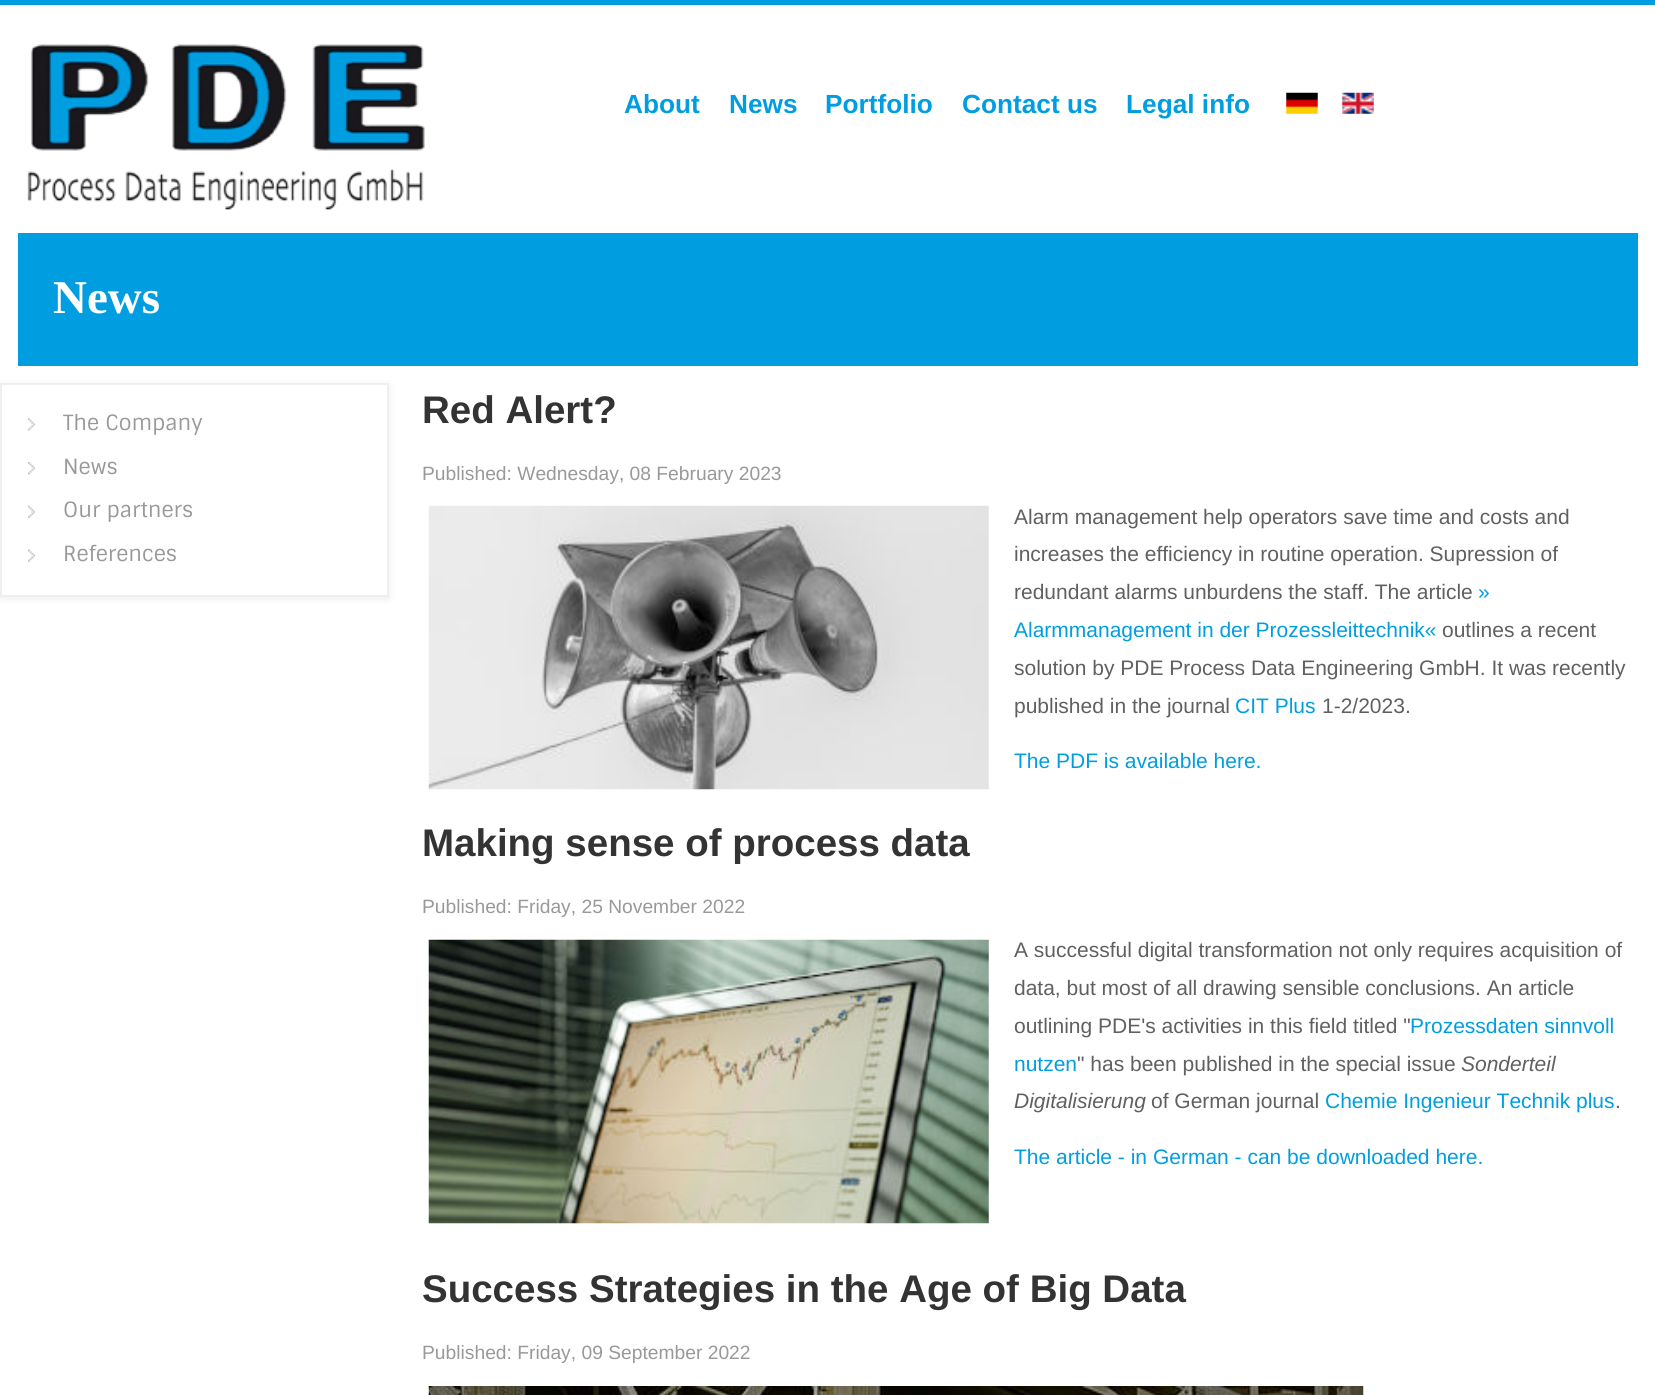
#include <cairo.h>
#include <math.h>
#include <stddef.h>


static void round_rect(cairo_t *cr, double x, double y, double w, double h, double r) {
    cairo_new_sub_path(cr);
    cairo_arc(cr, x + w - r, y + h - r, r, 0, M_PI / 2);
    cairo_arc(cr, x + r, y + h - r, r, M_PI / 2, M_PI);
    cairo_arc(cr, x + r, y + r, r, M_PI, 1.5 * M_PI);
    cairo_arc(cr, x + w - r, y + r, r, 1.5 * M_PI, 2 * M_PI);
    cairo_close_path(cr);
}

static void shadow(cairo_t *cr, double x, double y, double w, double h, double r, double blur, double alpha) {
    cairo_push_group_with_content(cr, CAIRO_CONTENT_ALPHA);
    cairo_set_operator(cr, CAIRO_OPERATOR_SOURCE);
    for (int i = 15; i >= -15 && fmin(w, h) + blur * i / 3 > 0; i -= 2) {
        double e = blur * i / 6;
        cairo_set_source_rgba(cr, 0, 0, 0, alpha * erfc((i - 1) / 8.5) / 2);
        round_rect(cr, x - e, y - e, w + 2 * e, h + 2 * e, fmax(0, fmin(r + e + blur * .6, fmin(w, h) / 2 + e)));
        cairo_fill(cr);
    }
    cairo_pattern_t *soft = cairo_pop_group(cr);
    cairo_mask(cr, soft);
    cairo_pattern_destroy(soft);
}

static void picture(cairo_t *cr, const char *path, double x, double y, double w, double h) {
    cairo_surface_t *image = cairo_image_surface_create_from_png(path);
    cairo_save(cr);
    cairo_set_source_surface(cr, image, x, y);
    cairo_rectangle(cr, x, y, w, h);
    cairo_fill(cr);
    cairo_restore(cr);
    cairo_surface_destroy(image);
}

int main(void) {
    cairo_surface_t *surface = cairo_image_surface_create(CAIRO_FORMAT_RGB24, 1655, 1395);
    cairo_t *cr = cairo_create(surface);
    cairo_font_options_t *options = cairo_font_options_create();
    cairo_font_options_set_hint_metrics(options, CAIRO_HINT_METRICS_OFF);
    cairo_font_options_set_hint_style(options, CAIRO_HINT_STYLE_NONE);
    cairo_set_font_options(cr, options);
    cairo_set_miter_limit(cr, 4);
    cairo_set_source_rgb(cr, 1, 1, 1);
    cairo_paint(cr);
    cairo_set_source_rgb(cr, 0, 0.62, 0.882);
    cairo_rectangle(cr, 0, 0, 1655, 5);
    cairo_fill(cr);
    picture(cr, "img1.png", 27, 44, 398, 166);
    cairo_select_font_face(cr, "Liberation Sans", CAIRO_FONT_SLANT_NORMAL, CAIRO_FONT_WEIGHT_BOLD);
    cairo_set_font_size(cr, 26.25);
    cairo_move_to(cr, 624, 113);
    cairo_show_text(cr, "About");
    cairo_move_to(cr, 729, 113);
    cairo_show_text(cr, "News");
    cairo_move_to(cr, 825, 113);
    cairo_show_text(cr, "Portfolio");
    cairo_move_to(cr, 962, 113);
    cairo_show_text(cr, "Contact us");
    cairo_move_to(cr, 1126, 113);
    cairo_show_text(cr, "Legal info");
    picture(cr, "img2.png", 1286, 92, 32, 22);
    picture(cr, "img3.png", 1342, 92, 32, 22);
    cairo_rectangle(cr, 18, 233, 1620, 133);
    cairo_fill(cr);
    cairo_select_font_face(cr, "Liberation Serif", CAIRO_FONT_SLANT_NORMAL, CAIRO_FONT_WEIGHT_BOLD);
    cairo_set_font_size(cr, 47);
    cairo_set_source_rgb(cr, 1, 1, 1);
    cairo_move_to(cr, 53, 313);
    cairo_show_text(cr, "News");
    cairo_set_source_rgb(cr, 0.933, 0.933, 0.933);
    shadow(cr, 0, 385, 389, 214, 0, 3.5, 1);
    cairo_set_source_rgb(cr, 1, 1, 1);
    cairo_rectangle(cr, 1, 384, 387, 212);
    cairo_fill_preserve(cr);
    cairo_set_source_rgb(cr, 0.937, 0.937, 0.937);
    cairo_stroke(cr);
    picture(cr, "img4.png", 28, 418, 7, 13);
    cairo_select_font_face(cr, "Sintony", CAIRO_FONT_SLANT_NORMAL, CAIRO_FONT_WEIGHT_NORMAL);
    cairo_set_font_size(cr, 21);
    cairo_set_source_rgb(cr, 0.6, 0.6, 0.6);
    cairo_move_to(cr, 63, 430);
    cairo_show_text(cr, "The Company");
    picture(cr, "img5.png", 28, 462, 7, 13);
    cairo_move_to(cr, 63, 474);
    cairo_show_text(cr, "News");
    picture(cr, "img6.png", 28, 505, 7, 13);
    cairo_move_to(cr, 63, 517);
    cairo_show_text(cr, "Our partners");
    picture(cr, "img7.png", 28, 549, 7, 13);
    cairo_move_to(cr, 63, 561);
    cairo_show_text(cr, "References");
    cairo_select_font_face(cr, "Liberation Sans", CAIRO_FONT_SLANT_NORMAL, CAIRO_FONT_WEIGHT_BOLD);
    cairo_set_font_size(cr, 38.5);
    cairo_set_source_rgb(cr, 0.2, 0.2, 0.2);
    cairo_move_to(cr, 422, 423);
    cairo_show_text(cr, "Red Alert?");
    cairo_select_font_face(cr, "Liberation Sans", CAIRO_FONT_SLANT_NORMAL, CAIRO_FONT_WEIGHT_NORMAL);
    cairo_set_font_size(cr, 19.25);
    cairo_set_source_rgb(cr, 0.6, 0.6, 0.6);
    cairo_move_to(cr, 422, 480);
    cairo_show_text(cr, "Published: Wednesday, 08 February 2023");
    picture(cr, "img8.png", 428, 505, 561, 285);
    cairo_set_font_size(cr, 21);
    cairo_set_source_rgb(cr, 0.376, 0.376, 0.376);
    cairo_move_to(cr, 1014, 524);
    cairo_show_text(cr, "Alarm management help operators save time and costs and");
    cairo_move_to(cr, 1014, 561);
    cairo_show_text(cr, "increases the efficiency in routine operation. Supression of");
    cairo_move_to(cr, 1014, 599);
    cairo_show_text(cr, "redundant alarms unburdens the staff. The article");
    cairo_set_source_rgb(cr, 0, 0.62, 0.882);
    cairo_move_to(cr, 1478, 599);
    cairo_show_text(cr, "»");
    cairo_move_to(cr, 1014, 637);
    cairo_show_text(cr, "Alarmmanagement in der Prozessleittechnik«");
    cairo_set_source_rgb(cr, 0.376, 0.376, 0.376);
    cairo_move_to(cr, 1442, 637);
    cairo_show_text(cr, "outlines a recent");
    cairo_move_to(cr, 1014, 675);
    cairo_show_text(cr, "solution by PDE Process Data Engineering GmbH. It was recently");
    cairo_move_to(cr, 1014, 713);
    cairo_show_text(cr, "published in the journal");
    cairo_set_source_rgb(cr, 0, 0.62, 0.882);
    cairo_move_to(cr, 1235, 713);
    cairo_show_text(cr, "CIT Plus");
    cairo_set_source_rgb(cr, 0.376, 0.376, 0.376);
    cairo_move_to(cr, 1322, 713);
    cairo_show_text(cr, "1-2/2023.");
    cairo_set_source_rgb(cr, 0, 0.62, 0.882);
    cairo_move_to(cr, 1014, 768);
    cairo_show_text(cr, "The PDF is available here.");
    cairo_select_font_face(cr, "Liberation Sans", CAIRO_FONT_SLANT_NORMAL, CAIRO_FONT_WEIGHT_BOLD);
    cairo_set_font_size(cr, 38.5);
    cairo_set_source_rgb(cr, 0.2, 0.2, 0.2);
    cairo_move_to(cr, 422, 856);
    cairo_show_text(cr, "Making sense of process data");
    cairo_select_font_face(cr, "Liberation Sans", CAIRO_FONT_SLANT_NORMAL, CAIRO_FONT_WEIGHT_NORMAL);
    cairo_set_font_size(cr, 19.25);
    cairo_set_source_rgb(cr, 0.6, 0.6, 0.6);
    cairo_move_to(cr, 422, 913);
    cairo_show_text(cr, "Published: Friday, 25 November 2022");
    picture(cr, "img9.png", 428, 939, 561, 285);
    cairo_set_font_size(cr, 21);
    cairo_set_source_rgb(cr, 0.376, 0.376, 0.376);
    cairo_move_to(cr, 1014, 957);
    cairo_show_text(cr, "A successful digital transformation not only requires acquisition of");
    cairo_move_to(cr, 1014, 995);
    cairo_show_text(cr, "data, but most of all drawing sensible conclusions. An article");
    cairo_move_to(cr, 1014, 1033);
    cairo_show_text(cr, "outlining PDE's activities in this field titled \"");
    cairo_set_source_rgb(cr, 0, 0.62, 0.882);
    cairo_move_to(cr, 1410, 1033);
    cairo_show_text(cr, "Prozessdaten sinnvoll");
    cairo_move_to(cr, 1014, 1071);
    cairo_show_text(cr, "nutzen");
    cairo_set_source_rgb(cr, 0.376, 0.376, 0.376);
    cairo_move_to(cr, 1077, 1071);
    cairo_show_text(cr, "\" has been published in the special issue");
    cairo_select_font_face(cr, "Liberation Sans", CAIRO_FONT_SLANT_ITALIC, CAIRO_FONT_WEIGHT_NORMAL);
    cairo_move_to(cr, 1461, 1071);
    cairo_show_text(cr, "Sonderteil");
    cairo_move_to(cr, 1014, 1108);
    cairo_show_text(cr, "Digitalisierung");
    cairo_select_font_face(cr, "Liberation Sans", CAIRO_FONT_SLANT_NORMAL, CAIRO_FONT_WEIGHT_NORMAL);
    cairo_move_to(cr, 1151, 1108);
    cairo_show_text(cr, "of German journal");
    cairo_set_source_rgb(cr, 0, 0.62, 0.882);
    cairo_move_to(cr, 1325, 1108);
    cairo_show_text(cr, "Chemie Ingenieur Technik plus");
    cairo_set_source_rgb(cr, 0.376, 0.376, 0.376);
    cairo_move_to(cr, 1615, 1108);
    cairo_show_text(cr, ".");
    cairo_set_source_rgb(cr, 0, 0.62, 0.882);
    cairo_move_to(cr, 1014, 1164);
    cairo_show_text(cr, "The article - in German - can be downloaded here.");
    cairo_select_font_face(cr, "Liberation Sans", CAIRO_FONT_SLANT_NORMAL, CAIRO_FONT_WEIGHT_BOLD);
    cairo_set_font_size(cr, 38.5);
    cairo_set_source_rgb(cr, 0.2, 0.2, 0.2);
    cairo_move_to(cr, 422, 1302);
    cairo_show_text(cr, "Success Strategies in the Age of Big Data");
    cairo_select_font_face(cr, "Liberation Sans", CAIRO_FONT_SLANT_NORMAL, CAIRO_FONT_WEIGHT_NORMAL);
    cairo_set_font_size(cr, 19.25);
    cairo_set_source_rgb(cr, 0.6, 0.6, 0.6);
    cairo_move_to(cr, 422, 1359);
    cairo_show_text(cr, "Published: Friday, 09 September 2022");
    picture(cr, "img10.png", 428, 1386, 936, 9);
    cairo_surface_write_to_png(surface, "page.png");
    cairo_font_options_destroy(options);
    cairo_destroy(cr);
    cairo_surface_destroy(surface);
    return 0;
}
